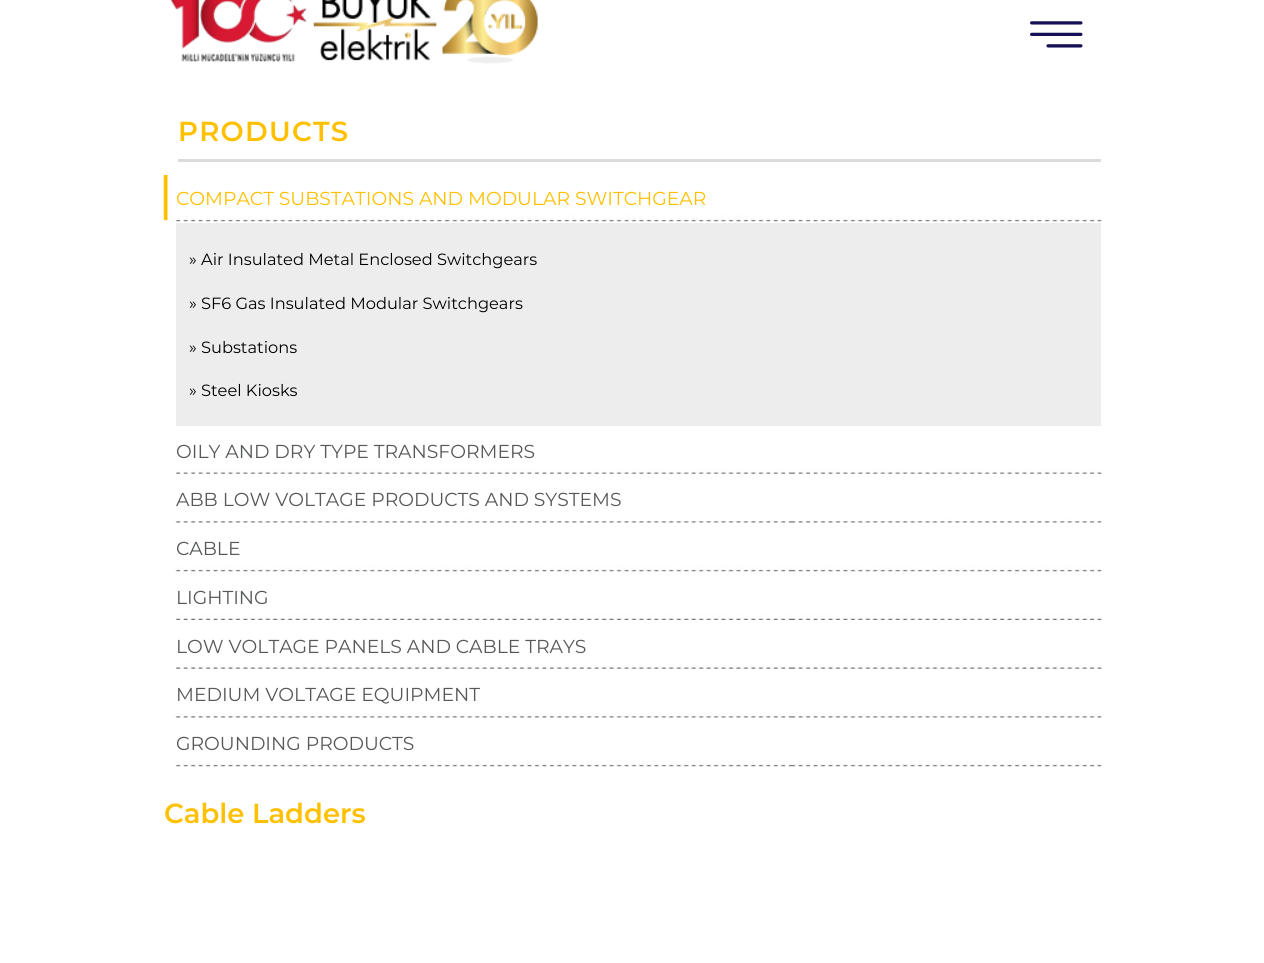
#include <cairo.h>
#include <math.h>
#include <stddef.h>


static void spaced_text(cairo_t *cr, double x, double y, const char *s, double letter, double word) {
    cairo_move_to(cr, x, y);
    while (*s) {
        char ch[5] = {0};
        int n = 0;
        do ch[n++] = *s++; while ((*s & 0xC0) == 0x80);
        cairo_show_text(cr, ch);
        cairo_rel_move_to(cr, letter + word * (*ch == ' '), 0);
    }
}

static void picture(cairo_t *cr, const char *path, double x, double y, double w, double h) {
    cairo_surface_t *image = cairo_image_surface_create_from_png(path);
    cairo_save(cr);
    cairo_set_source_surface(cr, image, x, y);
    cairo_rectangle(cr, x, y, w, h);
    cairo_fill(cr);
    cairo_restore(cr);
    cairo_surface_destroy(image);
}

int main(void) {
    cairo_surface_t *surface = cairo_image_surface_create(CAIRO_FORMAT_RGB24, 1264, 963);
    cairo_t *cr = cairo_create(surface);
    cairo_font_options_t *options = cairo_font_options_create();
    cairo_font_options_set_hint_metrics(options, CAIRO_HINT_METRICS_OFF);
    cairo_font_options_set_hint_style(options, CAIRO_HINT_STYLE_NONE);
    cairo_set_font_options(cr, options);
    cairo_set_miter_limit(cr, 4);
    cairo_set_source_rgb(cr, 1, 1, 1);
    cairo_paint(cr);
    picture(cr, "img1.png", 170, 0, 368, 64);
    picture(cr, "img2.png", 1030, 21, 53, 27);
    cairo_set_source_rgb(cr, 0.859, 0.859, 0.859);
    cairo_rectangle(cr, 178, 159, 923, 3);
    cairo_fill(cr);
    cairo_select_font_face(cr, "Montserrat SemiBold", CAIRO_FONT_SLANT_NORMAL, CAIRO_FONT_WEIGHT_NORMAL);
    cairo_set_font_size(cr, 27.5);
    cairo_set_source_rgb(cr, 1, 0.753, 0);
    spaced_text(cr, 178, 141, "PRODUCTS", 1.25, 0);
    picture(cr, "img3.png", 163, 175, 939, 47);
    cairo_select_font_face(cr, "Montserrat", CAIRO_FONT_SLANT_NORMAL, CAIRO_FONT_WEIGHT_NORMAL);
    cairo_set_font_size(cr, 18.75);
    cairo_move_to(cr, 176, 205);
    cairo_show_text(cr, "COMPACT SUBSTATIONS AND MODULAR SWITCHGEAR");
    cairo_set_source_rgb(cr, 0.929, 0.929, 0.929);
    cairo_rectangle(cr, 176, 223, 925, 203);
    cairo_fill(cr);
    cairo_set_font_size(cr, 16.25);
    cairo_set_source_rgb(cr, 0, 0, 0);
    cairo_move_to(cr, 189, 265);
    cairo_show_text(cr, "» Air Insulated Metal Enclosed Switchgears");
    cairo_move_to(cr, 189, 309);
    cairo_show_text(cr, "» SF6 Gas Insulated Modular Switchgears");
    cairo_move_to(cr, 189, 353);
    cairo_show_text(cr, "» Substations");
    cairo_move_to(cr, 189, 396);
    cairo_show_text(cr, "» Steel Kiosks");
    picture(cr, "img4.png", 175, 469, 927, 5);
    cairo_set_font_size(cr, 18.75);
    cairo_set_source_rgb(cr, 0.337, 0.345, 0.353);
    cairo_move_to(cr, 176, 458);
    cairo_show_text(cr, "OILY AND DRY TYPE TRANSFORMERS");
    picture(cr, "img5.png", 174, 519, 928, 4);
    cairo_move_to(cr, 176, 506);
    cairo_show_text(cr, "ABB LOW VOLTAGE PRODUCTS AND SYSTEMS");
    picture(cr, "img6.png", 174, 565, 928, 7);
    cairo_move_to(cr, 176, 555);
    cairo_show_text(cr, "CABLE");
    picture(cr, "img7.png", 175, 614, 927, 6);
    cairo_move_to(cr, 176, 604);
    cairo_show_text(cr, "LIGHTING");
    picture(cr, "img8.png", 175, 664, 927, 5);
    cairo_move_to(cr, 176, 653);
    cairo_show_text(cr, "LOW VOLTAGE PANELS AND CABLE TRAYS");
    picture(cr, "img5.png", 174, 714, 928, 4);
    cairo_move_to(cr, 176, 701);
    cairo_show_text(cr, "MEDIUM VOLTAGE EQUIPMENT");
    picture(cr, "img6.png", 174, 760, 928, 7);
    cairo_move_to(cr, 176, 750);
    cairo_show_text(cr, "GROUNDING PRODUCTS");
    cairo_select_font_face(cr, "Montserrat SemiBold", CAIRO_FONT_SLANT_NORMAL, CAIRO_FONT_WEIGHT_NORMAL);
    cairo_set_font_size(cr, 27.5);
    cairo_set_source_rgb(cr, 1, 0.753, 0);
    cairo_move_to(cr, 164, 823);
    cairo_show_text(cr, "Cable Ladders");
    cairo_surface_write_to_png(surface, "page.png");
    cairo_font_options_destroy(options);
    cairo_destroy(cr);
    cairo_surface_destroy(surface);
    return 0;
}
